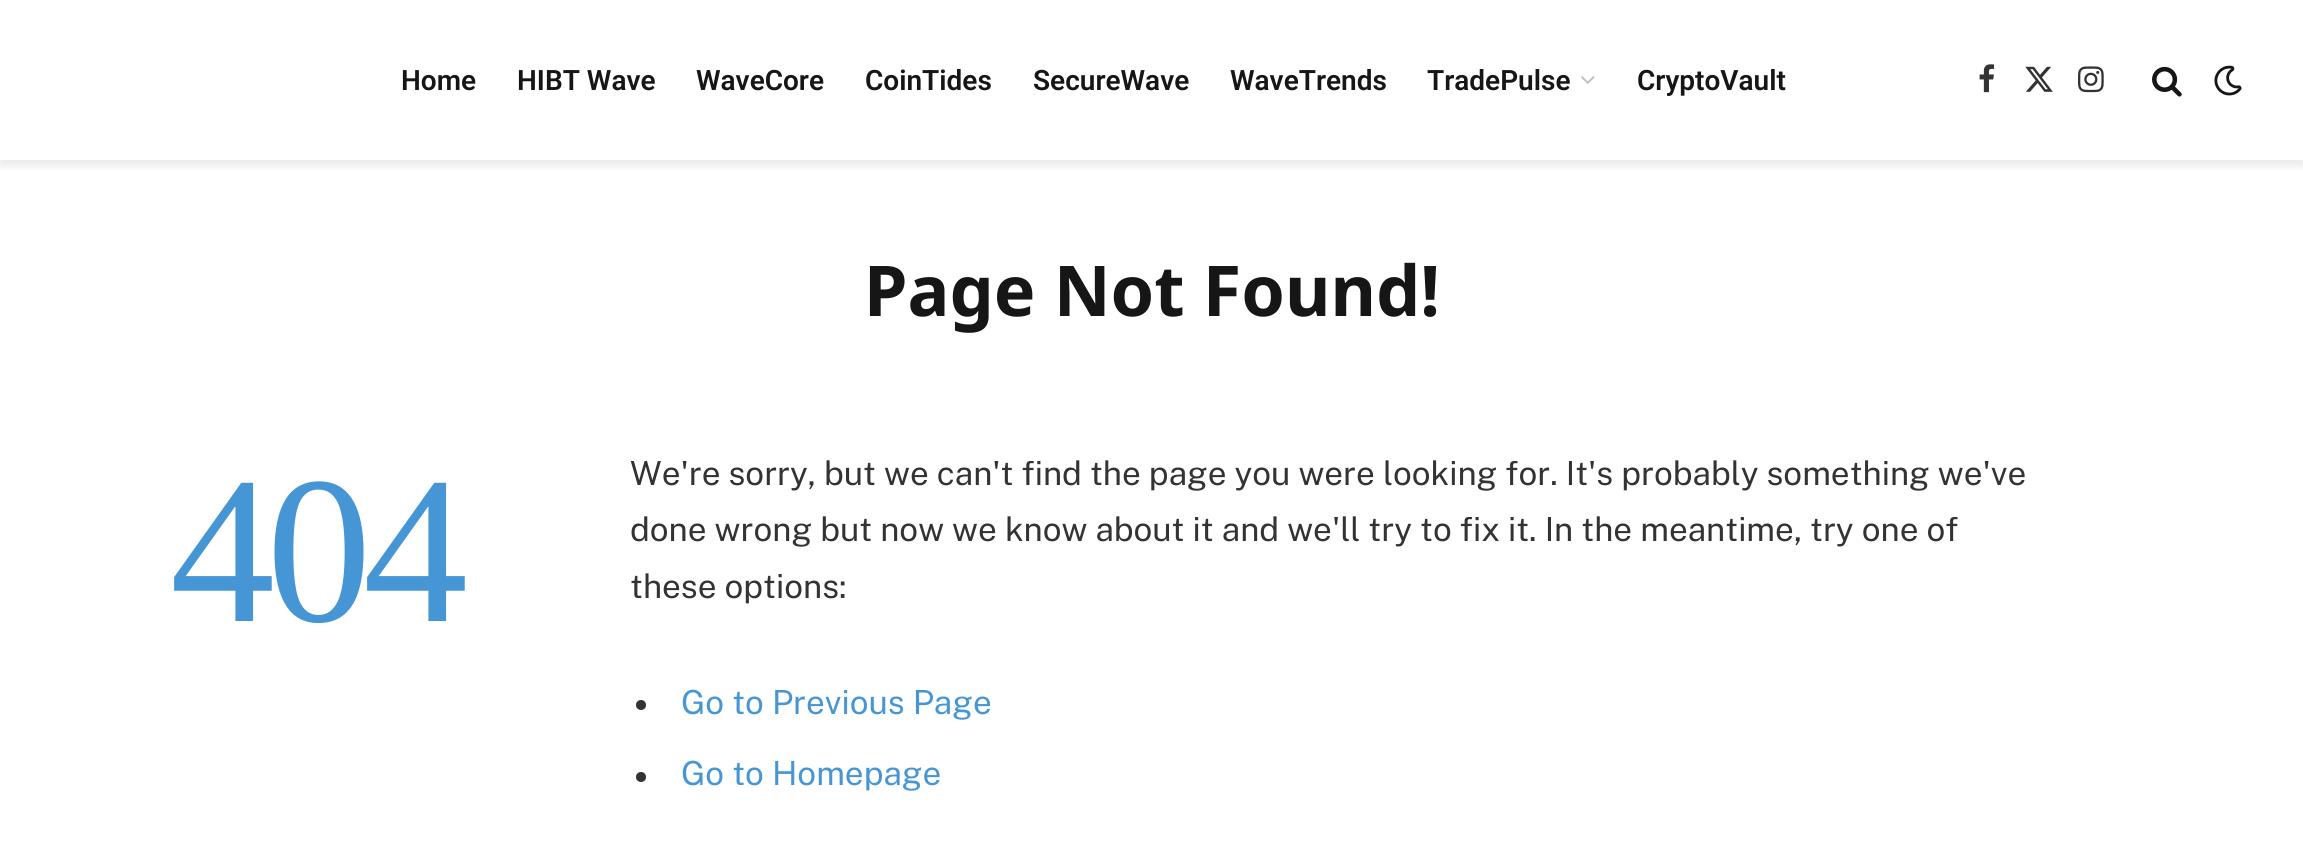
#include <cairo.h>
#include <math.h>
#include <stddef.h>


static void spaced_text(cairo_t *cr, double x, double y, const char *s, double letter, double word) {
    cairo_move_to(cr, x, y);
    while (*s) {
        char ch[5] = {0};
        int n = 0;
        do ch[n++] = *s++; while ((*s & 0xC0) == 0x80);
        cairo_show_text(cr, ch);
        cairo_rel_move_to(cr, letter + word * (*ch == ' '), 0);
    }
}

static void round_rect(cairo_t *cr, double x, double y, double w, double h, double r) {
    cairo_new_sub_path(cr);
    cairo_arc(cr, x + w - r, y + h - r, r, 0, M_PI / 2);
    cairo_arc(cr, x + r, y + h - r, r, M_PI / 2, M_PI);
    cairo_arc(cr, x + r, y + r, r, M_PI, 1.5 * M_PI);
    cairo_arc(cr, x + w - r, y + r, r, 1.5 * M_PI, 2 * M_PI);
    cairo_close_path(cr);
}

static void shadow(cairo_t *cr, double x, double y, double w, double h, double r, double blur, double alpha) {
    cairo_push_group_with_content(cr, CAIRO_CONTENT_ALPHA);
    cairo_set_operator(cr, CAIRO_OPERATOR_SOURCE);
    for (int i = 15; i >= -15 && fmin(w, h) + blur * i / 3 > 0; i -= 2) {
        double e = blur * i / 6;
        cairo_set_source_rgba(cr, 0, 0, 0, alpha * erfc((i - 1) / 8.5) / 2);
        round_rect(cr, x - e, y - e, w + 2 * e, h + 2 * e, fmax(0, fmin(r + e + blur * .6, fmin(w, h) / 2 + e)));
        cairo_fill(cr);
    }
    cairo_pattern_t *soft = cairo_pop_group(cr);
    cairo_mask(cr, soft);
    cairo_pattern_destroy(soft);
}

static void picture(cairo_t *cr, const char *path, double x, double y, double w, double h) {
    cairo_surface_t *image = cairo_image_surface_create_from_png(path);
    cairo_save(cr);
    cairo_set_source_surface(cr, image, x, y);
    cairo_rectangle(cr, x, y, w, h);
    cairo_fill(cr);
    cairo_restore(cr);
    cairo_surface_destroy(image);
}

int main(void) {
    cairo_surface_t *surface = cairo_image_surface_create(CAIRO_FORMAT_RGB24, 2303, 856);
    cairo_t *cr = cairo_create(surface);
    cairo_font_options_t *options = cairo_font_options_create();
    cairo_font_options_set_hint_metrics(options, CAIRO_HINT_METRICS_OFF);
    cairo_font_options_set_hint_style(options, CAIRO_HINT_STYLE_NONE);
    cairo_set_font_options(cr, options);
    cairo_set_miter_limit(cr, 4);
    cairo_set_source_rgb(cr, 1, 1, 1);
    cairo_paint(cr);
    cairo_save(cr);
    cairo_rectangle(cr, 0, 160, 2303, 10);
    cairo_clip(cr);
    cairo_set_source_rgb(cr, 0.447, 0.447, 0.447);
    shadow(cr, 0, 6, 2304, 160, 0, 4, 0.15);
    cairo_restore(cr);
    cairo_select_font_face(cr, "Roboto SemiBold", CAIRO_FONT_SLANT_NORMAL, CAIRO_FONT_WEIGHT_NORMAL);
    cairo_set_font_size(cr, 28);
    cairo_set_source_rgb(cr, 0.086, 0.086, 0.086);
    cairo_move_to(cr, 401, 90);
    cairo_show_text(cr, "Home");
    cairo_move_to(cr, 517, 90);
    cairo_show_text(cr, "HIBT Wave");
    cairo_move_to(cr, 696, 90);
    cairo_show_text(cr, "WaveCore");
    cairo_move_to(cr, 865, 90);
    cairo_show_text(cr, "CoinTides");
    cairo_move_to(cr, 1033, 90);
    cairo_show_text(cr, "SecureWave");
    cairo_move_to(cr, 1230, 90);
    cairo_show_text(cr, "WaveTrends");
    cairo_move_to(cr, 1427, 90);
    cairo_show_text(cr, "TradePulse");
    picture(cr, "img1.png", 1581, 76, 14, 8);
    cairo_move_to(cr, 1637, 90);
    cairo_show_text(cr, "CryptoVault");
    picture(cr, "img2.png", 1979, 64, 16, 29);
    picture(cr, "img3.png", 2025, 66, 28, 26);
    picture(cr, "img4.png", 2078, 66, 26, 27);
    picture(cr, "img5.png", 2152, 66, 30, 31);
    picture(cr, "img6.png", 2214, 65, 28, 31);
    cairo_select_font_face(cr, "Noto Sans", CAIRO_FONT_SLANT_NORMAL, CAIRO_FONT_WEIGHT_BOLD);
    cairo_set_font_size(cr, 70);
    cairo_move_to(cr, 864, 316);
    cairo_show_text(cr, "Page Not Found!");
    cairo_select_font_face(cr, "Liberation Serif", CAIRO_FONT_SLANT_NORMAL, CAIRO_FONT_WEIGHT_NORMAL);
    cairo_set_font_size(cr, 210);
    cairo_set_source_rgb(cr, 0.275, 0.588, 0.839);
    spaced_text(cr, 170, 621, "404", -8.5, 0);
    cairo_select_font_face(cr, "Public Sans", CAIRO_FONT_SLANT_NORMAL, CAIRO_FONT_WEIGHT_NORMAL);
    cairo_set_font_size(cr, 33.2);
    cairo_set_source_rgb(cr, 0.2, 0.2, 0.2);
    cairo_move_to(cr, 630, 485);
    cairo_show_text(cr, "We're sorry, but we can't find the page you were looking for. It's probably something we've");
    cairo_move_to(cr, 630, 541);
    cairo_show_text(cr, "done wrong but now we know about it and we'll try to fix it. In the meantime, try one of");
    cairo_move_to(cr, 630, 598);
    cairo_show_text(cr, "these options:");
    cairo_new_path(cr);
    cairo_arc(cr, 641, 705, 5, 0, 2 * M_PI);
    cairo_fill(cr);
    cairo_set_source_rgb(cr, 0.275, 0.588, 0.839);
    cairo_move_to(cr, 681, 714);
    cairo_show_text(cr, "Go to Previous Page");
    cairo_set_source_rgb(cr, 0.2, 0.2, 0.2);
    cairo_new_path(cr);
    cairo_arc(cr, 641, 777, 5, 0, 2 * M_PI);
    cairo_fill(cr);
    cairo_set_source_rgb(cr, 0.275, 0.588, 0.839);
    cairo_move_to(cr, 681, 785);
    cairo_show_text(cr, "Go to Homepage");
    cairo_surface_write_to_png(surface, "page.png");
    cairo_font_options_destroy(options);
    cairo_destroy(cr);
    cairo_surface_destroy(surface);
    return 0;
}
